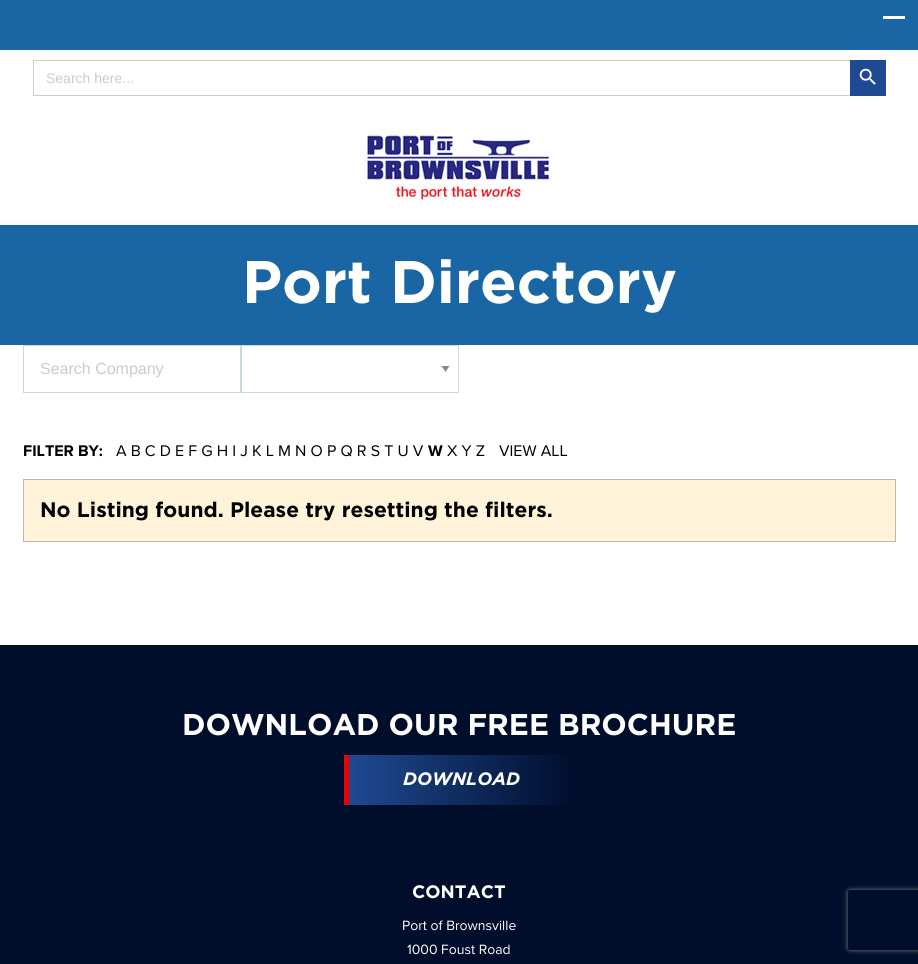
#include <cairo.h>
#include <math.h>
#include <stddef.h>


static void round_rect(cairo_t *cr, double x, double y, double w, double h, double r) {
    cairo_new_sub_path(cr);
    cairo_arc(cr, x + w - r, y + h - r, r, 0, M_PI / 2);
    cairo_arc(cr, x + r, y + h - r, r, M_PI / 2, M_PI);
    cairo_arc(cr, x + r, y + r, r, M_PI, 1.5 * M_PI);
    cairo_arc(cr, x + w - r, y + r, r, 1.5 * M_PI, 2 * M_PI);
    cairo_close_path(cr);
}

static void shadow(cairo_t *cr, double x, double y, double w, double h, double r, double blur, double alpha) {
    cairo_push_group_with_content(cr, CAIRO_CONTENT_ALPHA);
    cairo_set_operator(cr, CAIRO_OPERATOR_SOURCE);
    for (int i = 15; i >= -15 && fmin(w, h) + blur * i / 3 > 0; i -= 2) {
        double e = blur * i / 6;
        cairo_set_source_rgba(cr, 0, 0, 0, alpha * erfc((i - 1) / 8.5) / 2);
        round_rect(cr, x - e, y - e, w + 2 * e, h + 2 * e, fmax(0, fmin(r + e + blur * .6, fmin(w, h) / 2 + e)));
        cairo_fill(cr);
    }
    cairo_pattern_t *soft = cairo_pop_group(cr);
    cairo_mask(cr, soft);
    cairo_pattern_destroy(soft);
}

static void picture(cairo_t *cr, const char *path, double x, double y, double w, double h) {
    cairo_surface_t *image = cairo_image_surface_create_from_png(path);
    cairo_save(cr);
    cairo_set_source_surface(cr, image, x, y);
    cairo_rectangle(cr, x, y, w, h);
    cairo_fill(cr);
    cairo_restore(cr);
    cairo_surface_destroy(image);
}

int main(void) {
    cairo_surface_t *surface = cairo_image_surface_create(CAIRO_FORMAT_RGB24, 918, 964);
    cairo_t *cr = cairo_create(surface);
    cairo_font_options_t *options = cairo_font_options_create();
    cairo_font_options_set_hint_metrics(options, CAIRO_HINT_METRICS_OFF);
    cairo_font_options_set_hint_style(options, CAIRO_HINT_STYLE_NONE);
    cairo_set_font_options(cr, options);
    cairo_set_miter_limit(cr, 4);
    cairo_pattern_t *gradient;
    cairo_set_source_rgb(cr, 1, 1, 1);
    cairo_paint(cr);
    cairo_set_source_rgb(cr, 0.102, 0.4, 0.643);
    cairo_rectangle(cr, 0, 0, 918, 50);
    cairo_fill(cr);
    cairo_set_source_rgb(cr, 1, 1, 1);
    cairo_rectangle(cr, 883, 16, 22, 3);
    cairo_fill(cr);
    cairo_set_source_rgb(cr, 0.8, 0.8, 0.8);
    cairo_rectangle(cr, 33, 60, 817, 1);
    cairo_fill(cr);
    cairo_rectangle(cr, 33, 95, 817, 1);
    cairo_fill(cr);
    cairo_rectangle(cr, 33, 60, 1, 36);
    cairo_fill(cr);
    cairo_select_font_face(cr, "Liberation Sans", CAIRO_FONT_SLANT_NORMAL, CAIRO_FONT_WEIGHT_NORMAL);
    cairo_set_font_size(cr, 14);
    cairo_set_source_rgb(cr, 0.792, 0.792, 0.792);
    cairo_move_to(cr, 46, 83);
    cairo_show_text(cr, "Search here...");
    cairo_set_source_rgb(cr, 0.122, 0.286, 0.573);
    cairo_rectangle(cr, 850, 60, 36, 36);
    cairo_fill(cr);
    picture(cr, "img1.png", 859, 68, 17, 17);
    picture(cr, "img2.png", 367, 133, 183, 69);
    cairo_set_source_rgb(cr, 0.102, 0.4, 0.643);
    cairo_rectangle(cr, 0, 225, 918, 120);
    cairo_fill(cr);
    cairo_select_font_face(cr, "Gotham", CAIRO_FONT_SLANT_NORMAL, CAIRO_FONT_WEIGHT_BOLD);
    cairo_set_font_size(cr, 60);
    cairo_set_source_rgb(cr, 1, 1, 1);
    cairo_move_to(cr, 242, 303);
    cairo_show_text(cr, "Port Directory");
    cairo_rectangle(cr, 23.5, 345.5, 217, 47);
    cairo_set_source_rgb(cr, 0.769, 0.855, 0.882);
    cairo_set_line_width(cr, 1);
    cairo_stroke(cr);
    cairo_select_font_face(cr, "Liberation Sans", CAIRO_FONT_SLANT_NORMAL, CAIRO_FONT_WEIGHT_NORMAL);
    cairo_set_font_size(cr, 16);
    cairo_set_source_rgb(cr, 0.792, 0.792, 0.792);
    cairo_move_to(cr, 40, 374);
    cairo_show_text(cr, "Search Company");
    cairo_set_source_rgb(cr, 0.541, 0.541, 0.541);
    cairo_new_path(cr);
    cairo_move_to(cr, 441.5, 366);
    cairo_line_to(cr, 449.5, 366);
    cairo_line_to(cr, 445.5, 372);
    cairo_close_path(cr);
    cairo_fill(cr);
    cairo_rectangle(cr, 241.5, 345.5, 217, 47);
    cairo_set_source_rgb(cr, 0.769, 0.855, 0.882);
    cairo_stroke(cr);
    cairo_select_font_face(cr, "Proxima Nova", CAIRO_FONT_SLANT_NORMAL, CAIRO_FONT_WEIGHT_BOLD);
    cairo_set_source_rgb(cr, 0, 0, 0);
    cairo_move_to(cr, 23, 456);
    cairo_show_text(cr, "FILTER BY:");
    cairo_select_font_face(cr, "Proxima Nova", CAIRO_FONT_SLANT_NORMAL, CAIRO_FONT_WEIGHT_NORMAL);
    cairo_move_to(cr, 116, 456);
    cairo_show_text(cr, "A B C D E F G H I J K L M N O P Q R S T U V");
    cairo_select_font_face(cr, "Proxima Nova", CAIRO_FONT_SLANT_NORMAL, CAIRO_FONT_WEIGHT_BOLD);
    cairo_move_to(cr, 428, 456);
    cairo_show_text(cr, "W");
    cairo_select_font_face(cr, "Proxima Nova", CAIRO_FONT_SLANT_NORMAL, CAIRO_FONT_WEIGHT_NORMAL);
    cairo_move_to(cr, 447, 456);
    cairo_show_text(cr, "X Y Z");
    cairo_move_to(cr, 499, 456);
    cairo_show_text(cr, "VIEW ALL");
    cairo_set_source_rgb(cr, 1, 0.953, 0.851);
    cairo_rectangle(cr, 23.5, 479.5, 872, 62);
    cairo_fill_preserve(cr);
    cairo_set_source_rgb(cr, 0.749, 0.714, 0.639);
    cairo_stroke(cr);
    cairo_select_font_face(cr, "Gotham", CAIRO_FONT_SLANT_NORMAL, CAIRO_FONT_WEIGHT_BOLD);
    cairo_set_font_size(cr, 21);
    cairo_set_source_rgb(cr, 0, 0, 0);
    cairo_move_to(cr, 40, 517);
    cairo_show_text(cr, "No Listing found. Please try resetting the filters.");
    cairo_set_source_rgb(cr, 0, 0.055, 0.173);
    cairo_rectangle(cr, 0, 645, 918, 319);
    cairo_fill(cr);
    cairo_set_font_size(cr, 30);
    cairo_set_source_rgb(cr, 1, 1, 1);
    cairo_move_to(cr, 182, 735);
    cairo_show_text(cr, "DOWNLOAD OUR FREE BROCHURE");
    gradient = cairo_pattern_create_linear(349, 780, 574, 780);
    cairo_pattern_add_color_stop_rgba(gradient, 0, 0.122, 0.286, 0.573, 1);
    cairo_pattern_add_color_stop_rgba(gradient, 1, 0, 0.055, 0.173, 1);
    cairo_set_source(cr, gradient);
    cairo_pattern_destroy(gradient);
    cairo_rectangle(cr, 349, 755, 219, 50);
    cairo_fill(cr);
    cairo_set_source_rgb(cr, 0.933, 0, 0);
    cairo_rectangle(cr, 344, 755, 5, 50);
    cairo_fill(cr);
    cairo_select_font_face(cr, "Gotham", CAIRO_FONT_SLANT_ITALIC, CAIRO_FONT_WEIGHT_BOLD);
    cairo_set_font_size(cr, 18);
    cairo_set_source_rgb(cr, 1, 1, 1);
    cairo_move_to(cr, 403, 785);
    cairo_show_text(cr, "DOWNLOAD");
    cairo_select_font_face(cr, "Gotham", CAIRO_FONT_SLANT_NORMAL, CAIRO_FONT_WEIGHT_BOLD);
    cairo_move_to(cr, 412, 898);
    cairo_show_text(cr, "CONTACT");
    cairo_select_font_face(cr, "Proxima Nova", CAIRO_FONT_SLANT_NORMAL, CAIRO_FONT_WEIGHT_NORMAL);
    cairo_set_font_size(cr, 14);
    cairo_move_to(cr, 402, 930);
    cairo_show_text(cr, "Port of Brownsville");
    cairo_move_to(cr, 407, 954);
    cairo_show_text(cr, "1000 Foust Road");
    cairo_save(cr);
    cairo_set_fill_rule(cr, CAIRO_FILL_RULE_EVEN_ODD);
    cairo_new_path(cr);
    cairo_move_to(cr, 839, 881);
    cairo_line_to(cr, 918, 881);
    cairo_line_to(cr, 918, 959);
    cairo_line_to(cr, 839, 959);
    cairo_close_path(cr);
    cairo_move_to(cr, 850, 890);
    cairo_line_to(cr, 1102, 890);
    cairo_curve_to(cr, 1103, 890, 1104, 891, 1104, 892);
    cairo_line_to(cr, 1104, 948);
    cairo_curve_to(cr, 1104, 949, 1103, 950, 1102, 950);
    cairo_line_to(cr, 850, 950);
    cairo_curve_to(cr, 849, 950, 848, 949, 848, 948);
    cairo_line_to(cr, 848, 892);
    cairo_curve_to(cr, 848, 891, 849, 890, 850, 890);
    cairo_close_path(cr);
    cairo_clip(cr);
    cairo_set_source_rgb(cr, 0.502, 0.502, 0.502);
    shadow(cr, 848, 890, 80, 60, 2, 2.5, 1);
    cairo_restore(cr);
    cairo_surface_write_to_png(surface, "page.png");
    cairo_font_options_destroy(options);
    cairo_destroy(cr);
    cairo_surface_destroy(surface);
    return 0;
}
